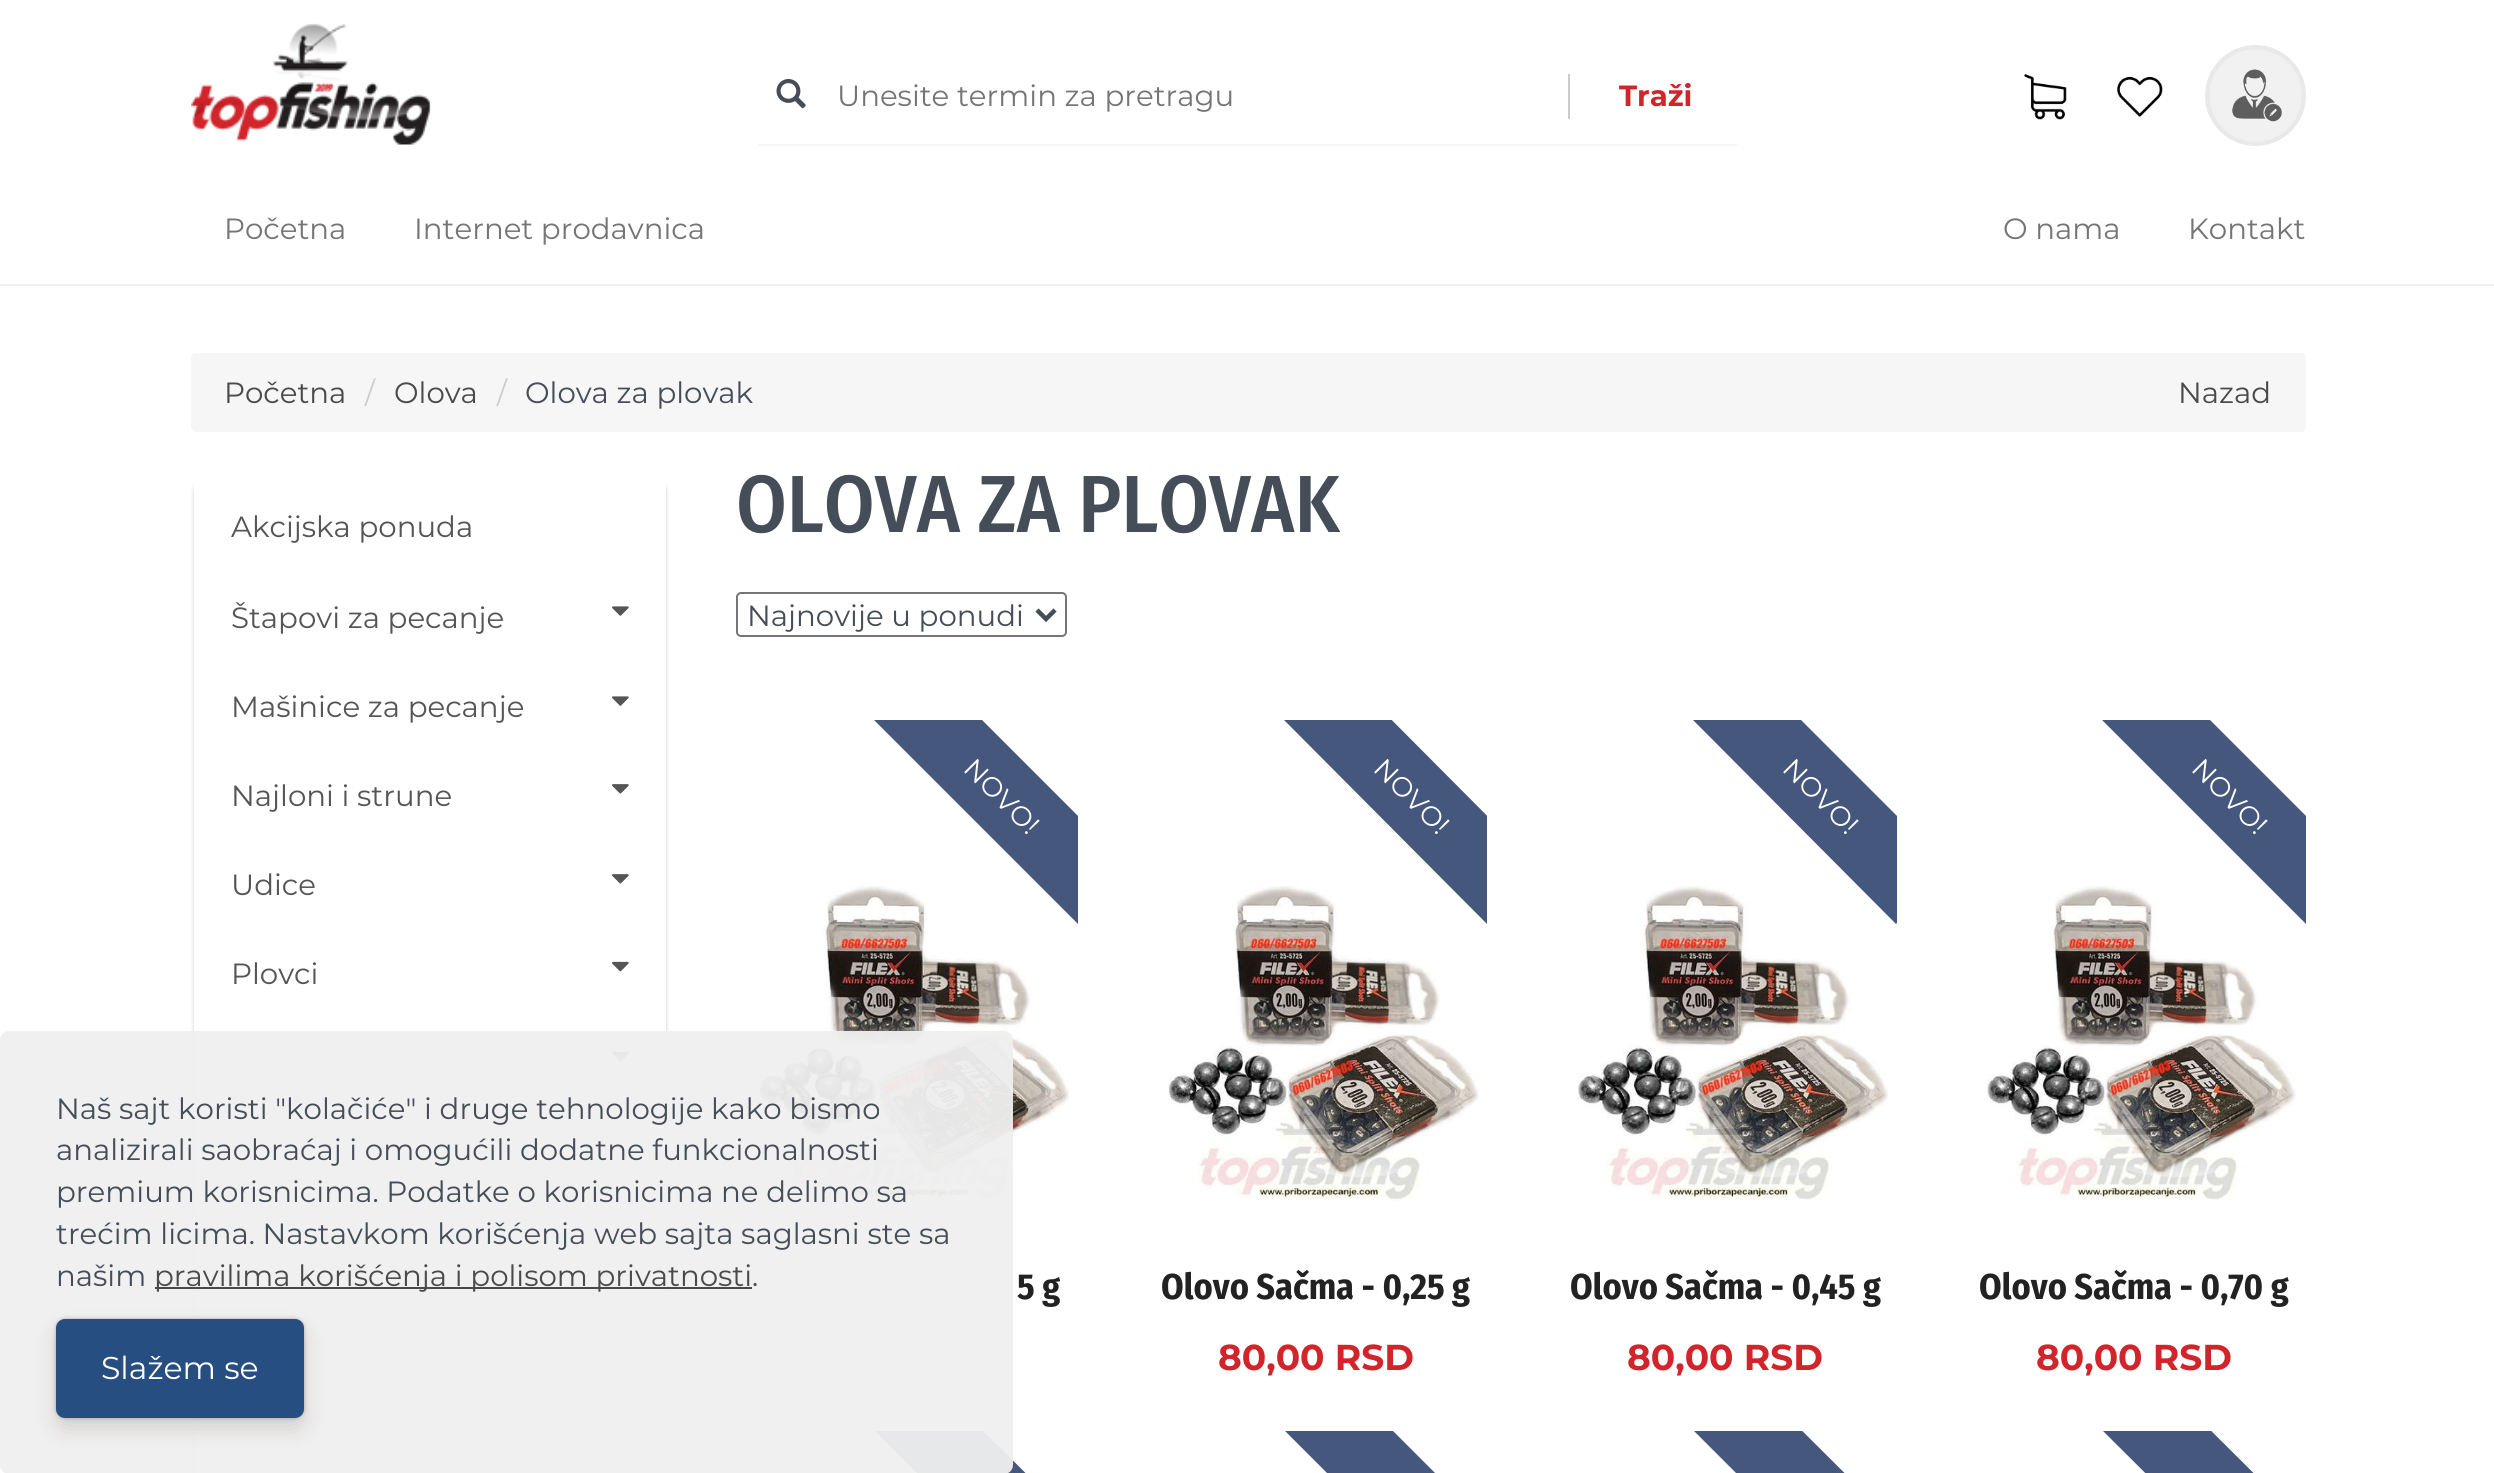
#include <cairo.h>
#include <math.h>
#include <stddef.h>


static void round_rect(cairo_t *cr, double x, double y, double w, double h, double r) {
    cairo_new_sub_path(cr);
    cairo_arc(cr, x + w - r, y + h - r, r, 0, M_PI / 2);
    cairo_arc(cr, x + r, y + h - r, r, M_PI / 2, M_PI);
    cairo_arc(cr, x + r, y + r, r, M_PI, 1.5 * M_PI);
    cairo_arc(cr, x + w - r, y + r, r, 1.5 * M_PI, 2 * M_PI);
    cairo_close_path(cr);
}

static void shadow(cairo_t *cr, double x, double y, double w, double h, double r, double blur, double alpha) {
    cairo_push_group_with_content(cr, CAIRO_CONTENT_ALPHA);
    cairo_set_operator(cr, CAIRO_OPERATOR_SOURCE);
    for (int i = 15; i >= -15 && fmin(w, h) + blur * i / 3 > 0; i -= 2) {
        double e = blur * i / 6;
        cairo_set_source_rgba(cr, 0, 0, 0, alpha * erfc((i - 1) / 8.5) / 2);
        round_rect(cr, x - e, y - e, w + 2 * e, h + 2 * e, fmax(0, fmin(r + e + blur * .6, fmin(w, h) / 2 + e)));
        cairo_fill(cr);
    }
    cairo_pattern_t *soft = cairo_pop_group(cr);
    cairo_mask(cr, soft);
    cairo_pattern_destroy(soft);
}

static void picture(cairo_t *cr, const char *path, double x, double y, double w, double h) {
    cairo_surface_t *image = cairo_image_surface_create_from_png(path);
    cairo_save(cr);
    cairo_set_source_surface(cr, image, x, y);
    cairo_rectangle(cr, x, y, w, h);
    cairo_fill(cr);
    cairo_restore(cr);
    cairo_surface_destroy(image);
}

int main(void) {
    cairo_surface_t *surface = cairo_image_surface_create(CAIRO_FORMAT_RGB24, 2494, 1473);
    cairo_t *cr = cairo_create(surface);
    cairo_font_options_t *options = cairo_font_options_create();
    cairo_font_options_set_hint_metrics(options, CAIRO_HINT_METRICS_OFF);
    cairo_font_options_set_hint_style(options, CAIRO_HINT_STYLE_NONE);
    cairo_set_font_options(cr, options);
    cairo_set_miter_limit(cr, 4);
    cairo_set_source_rgb(cr, 1, 1, 1);
    cairo_paint(cr);
    picture(cr, "img1.png", 191, 23, 240, 122);
    cairo_set_source_rgb(cr, 0.961, 0.961, 0.961);
    cairo_rectangle(cr, 758, 144, 979, 2);
    cairo_fill(cr);
    picture(cr, "img2.png", 776, 79, 30, 30);
    cairo_select_font_face(cr, "Montserrat", CAIRO_FONT_SLANT_NORMAL, CAIRO_FONT_WEIGHT_NORMAL);
    cairo_set_font_size(cr, 29.25);
    cairo_set_source_rgb(cr, 0.459, 0.459, 0.459);
    cairo_move_to(cr, 837, 106);
    cairo_show_text(cr, "Unesite termin za pretragu");
    cairo_set_source_rgb(cr, 0.8, 0.8, 0.8);
    cairo_rectangle(cr, 1568, 74, 2, 45);
    cairo_fill(cr);
    cairo_select_font_face(cr, "Montserrat", CAIRO_FONT_SLANT_NORMAL, CAIRO_FONT_WEIGHT_BOLD);
    cairo_set_source_rgb(cr, 0.82, 0.141, 0.169);
    cairo_move_to(cr, 1619, 106);
    cairo_show_text(cr, "Traži");
    picture(cr, "img3.png", 2024, 74, 43, 46);
    picture(cr, "img4.png", 2117, 76, 46, 41);
    cairo_arc(cr, 2255.5, 95.5, 48, 0, 2 * M_PI);
    cairo_set_source_rgb(cr, 0.914, 0.914, 0.914);
    cairo_set_line_width(cr, 5);
    cairo_stroke(cr);
    picture(cr, "img5.png", 2210, 50, 92, 92);
    cairo_set_source_rgb(cr, 0.945, 0.945, 0.945);
    cairo_rectangle(cr, 0, 284, 2494, 2);
    cairo_fill(cr);
    cairo_select_font_face(cr, "Montserrat", CAIRO_FONT_SLANT_NORMAL, CAIRO_FONT_WEIGHT_NORMAL);
    cairo_set_source_rgb(cr, 0.459, 0.459, 0.459);
    cairo_move_to(cr, 224, 239);
    cairo_show_text(cr, "Početna");
    cairo_move_to(cr, 414, 239);
    cairo_show_text(cr, "Internet prodavnica");
    cairo_move_to(cr, 2003, 239);
    cairo_show_text(cr, "O nama");
    cairo_move_to(cr, 2188, 239);
    cairo_show_text(cr, "Kontakt");
    cairo_set_source_rgb(cr, 0, 0, 0);
    shadow(cr, 194, 482, 472, 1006, 9, 2, 0.2);
    cairo_set_source_rgb(cr, 1, 1, 1);
    round_rect(cr, 194, 479, 472, 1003, 9);
    cairo_fill(cr);
    picture(cr, "img8.png", 612, 1051, 17, 11);
    cairo_set_source_rgb(cr, 0.961, 0.961, 0.961);
    cairo_rectangle(cr, 220, 1109, 442, 86);
    cairo_fill(cr);
    picture(cr, "img9.png", 759, 885, 310, 315);
    cairo_save(cr);
    cairo_rectangle(cr, 736, 1431, 342, 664);
    cairo_clip(cr);
    cairo_set_source_rgb(cr, 0.271, 0.341, 0.49);
    cairo_new_path(cr);
    cairo_move_to(cr, 928, 1376);
    cairo_line_to(cr, 1132, 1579);
    cairo_line_to(cr, 1078, 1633);
    cairo_line_to(cr, 874, 1430);
    cairo_close_path(cr);
    cairo_fill(cr);
    cairo_restore(cr);
    cairo_set_source_rgba(cr, 0.941, 0.941, 0.941, 0.95);
    round_rect(cr, 0, 1031, 1013, 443, 9);
    cairo_fill(cr);
    cairo_set_source_rgb(cr, 0.271, 0.302, 0.345);
    cairo_move_to(cr, 56, 1119);
    cairo_show_text(cr, "Naš sajt koristi \"kolačiće\" i druge tehnologije kako bismo");
    cairo_move_to(cr, 56, 1160);
    cairo_show_text(cr, "analizirali saobraćaj i omogućili dodatne funkcionalnosti");
    cairo_move_to(cr, 56, 1202);
    cairo_show_text(cr, "premium korisnicima. Podatke o korisnicima ne delimo sa");
    cairo_move_to(cr, 56, 1244);
    cairo_show_text(cr, "trećim licima. Nastavkom korišćenja web sajta saglasni ste sa");
    cairo_move_to(cr, 56, 1286);
    cairo_show_text(cr, "našim");
    cairo_set_source_rgb(cr, 0.29, 0.29, 0.282);
    cairo_rectangle(cr, 155, 1287, 597, 2);
    cairo_fill(cr);
    cairo_move_to(cr, 154, 1286);
    cairo_show_text(cr, "pravilima korišćenja i polisom privatnosti");
    cairo_set_source_rgb(cr, 0.271, 0.302, 0.345);
    cairo_move_to(cr, 752, 1286);
    cairo_show_text(cr, ".");
    cairo_set_source_rgb(cr, 0.133, 0.133, 0.133);
    shadow(cr, 56, 1319, 248, 99, 9, 2, 0.3);
    cairo_set_source_rgb(cr, 0.267, 0.067, 0);
    shadow(cr, 56, 1330, 248, 99, 9, 11, 0.15);
    cairo_set_source_rgb(cr, 0.153, 0.306, 0.502);
    round_rect(cr, 56, 1319, 248, 99, 9);
    cairo_fill(cr);
    cairo_set_font_size(cr, 31.5);
    cairo_set_source_rgb(cr, 1, 1, 1);
    cairo_move_to(cr, 101, 1379);
    cairo_show_text(cr, "Slažem se");
    cairo_set_source_rgb(cr, 0.961, 0.961, 0.961);
    round_rect(cr, 191, 353, 2115, 79, 5);
    cairo_fill(cr);
    cairo_set_font_size(cr, 29.25);
    cairo_set_source_rgb(cr, 0.29, 0.29, 0.282);
    cairo_move_to(cr, 224, 403);
    cairo_show_text(cr, "Početna");
    cairo_set_source_rgb(cr, 0.8, 0.8, 0.8);
    cairo_move_to(cr, 365, 403);
    cairo_show_text(cr, "/");
    cairo_set_source_rgb(cr, 0.29, 0.29, 0.282);
    cairo_move_to(cr, 394, 403);
    cairo_show_text(cr, "Olova");
    cairo_set_source_rgb(cr, 0.8, 0.8, 0.8);
    cairo_move_to(cr, 497, 403);
    cairo_show_text(cr, "/");
    cairo_set_source_rgb(cr, 0.271, 0.302, 0.345);
    cairo_move_to(cr, 525, 403);
    cairo_show_text(cr, "Olova za plovak");
    cairo_set_source_rgb(cr, 0.29, 0.29, 0.282);
    cairo_move_to(cr, 2178, 403);
    cairo_show_text(cr, "Nazad");
    cairo_set_source_rgb(cr, 0.333, 0.333, 0.333);
    cairo_move_to(cr, 231, 537);
    cairo_show_text(cr, "Akcijska ponuda");
    cairo_move_to(cr, 231, 628);
    cairo_show_text(cr, "Štapovi za pecanje");
    picture(cr, "img6.png", 612, 606, 17, 10);
    cairo_move_to(cr, 231, 717);
    cairo_show_text(cr, "Mašinice za pecanje");
    picture(cr, "img6.png", 612, 696, 17, 10);
    cairo_move_to(cr, 231, 806);
    cairo_show_text(cr, "Najloni i strune");
    picture(cr, "img7.png", 612, 784, 17, 10);
    cairo_move_to(cr, 231, 895);
    cairo_show_text(cr, "Udice");
    picture(cr, "img7.png", 612, 874, 17, 10);
    cairo_move_to(cr, 231, 984);
    cairo_show_text(cr, "Plovci");
    picture(cr, "img8.png", 612, 961, 17, 11);
    cairo_select_font_face(cr, "Fira Sans Condensed Medium", CAIRO_FONT_SLANT_NORMAL, CAIRO_FONT_WEIGHT_NORMAL);
    cairo_set_font_size(cr, 81);
    cairo_set_source_rgb(cr, 0.271, 0.302, 0.345);
    cairo_move_to(cr, 736, 532);
    cairo_show_text(cr, "OLOVA ZA PLOVAK");
    round_rect(cr, 737, 593, 329, 43, 4);
    cairo_set_source_rgb(cr, 0.463, 0.463, 0.463);
    cairo_set_line_width(cr, 2);
    cairo_stroke(cr);
    cairo_new_path(cr);
    cairo_move_to(cr, 1037, 610);
    cairo_line_to(cr, 1046, 619);
    cairo_line_to(cr, 1055, 610);
    cairo_set_source_rgb(cr, 0.271, 0.302, 0.345);
    cairo_set_line_width(cr, 4.5);
    cairo_stroke(cr);
    cairo_select_font_face(cr, "Montserrat", CAIRO_FONT_SLANT_NORMAL, CAIRO_FONT_WEIGHT_NORMAL);
    cairo_set_font_size(cr, 29.25);
    cairo_move_to(cr, 747, 626);
    cairo_show_text(cr, "Najnovije u ponudi");
    cairo_save(cr);
    cairo_rectangle(cr, 736, 720, 342, 666);
    cairo_clip(cr);
    cairo_set_source_rgb(cr, 0.271, 0.341, 0.49);
    cairo_new_path(cr);
    cairo_move_to(cr, 928, 666);
    cairo_line_to(cr, 1132, 870);
    cairo_line_to(cr, 1078, 924);
    cairo_line_to(cr, 874, 720);
    cairo_close_path(cr);
    cairo_fill(cr);
    cairo_restore(cr);
    cairo_set_font_size(cr, 27);
    cairo_set_source_rgb(cr, 1, 1, 1);
    cairo_save(cr);
    cairo_translate(cr, 962, 770);
    cairo_rotate(cr, 45 * M_PI / 180);
    cairo_move_to(cr, 0, 0);
    cairo_show_text(cr, "NOVO!");
    cairo_restore(cr);
    cairo_select_font_face(cr, "Fira Sans Condensed", CAIRO_FONT_SLANT_NORMAL, CAIRO_FONT_WEIGHT_BOLD);
    cairo_set_font_size(cr, 36);
    cairo_set_source_rgb(cr, 0.133, 0.133, 0.133);
    cairo_move_to(cr, 1017, 1299);
    cairo_show_text(cr, "5 g");
    picture(cr, "img10.png", 1168, 885, 311, 316);
    cairo_save(cr);
    cairo_rectangle(cr, 1145, 720, 342, 666);
    cairo_clip(cr);
    cairo_set_source_rgb(cr, 0.271, 0.341, 0.49);
    cairo_new_path(cr);
    cairo_move_to(cr, 1338, 666);
    cairo_line_to(cr, 1541, 870);
    cairo_line_to(cr, 1487, 924);
    cairo_line_to(cr, 1284, 720);
    cairo_close_path(cr);
    cairo_fill(cr);
    cairo_restore(cr);
    cairo_select_font_face(cr, "Montserrat", CAIRO_FONT_SLANT_NORMAL, CAIRO_FONT_WEIGHT_NORMAL);
    cairo_set_font_size(cr, 27);
    cairo_set_source_rgb(cr, 1, 1, 1);
    cairo_save(cr);
    cairo_translate(cr, 1372, 770);
    cairo_rotate(cr, 45 * M_PI / 180);
    cairo_move_to(cr, 0, 0);
    cairo_show_text(cr, "NOVO!");
    cairo_restore(cr);
    cairo_select_font_face(cr, "Fira Sans Condensed", CAIRO_FONT_SLANT_NORMAL, CAIRO_FONT_WEIGHT_BOLD);
    cairo_set_font_size(cr, 36);
    cairo_set_source_rgb(cr, 0.133, 0.133, 0.133);
    cairo_move_to(cr, 1161, 1299);
    cairo_show_text(cr, "Olovo Sačma - 0,25 g");
    cairo_select_font_face(cr, "Montserrat", CAIRO_FONT_SLANT_NORMAL, CAIRO_FONT_WEIGHT_BOLD);
    cairo_set_source_rgb(cr, 0.82, 0.141, 0.169);
    cairo_move_to(cr, 1218, 1370);
    cairo_show_text(cr, "80,00 RSD");
    picture(cr, "img9.png", 1578, 885, 310, 315);
    cairo_save(cr);
    cairo_rectangle(cr, 1555, 720, 342, 666);
    cairo_clip(cr);
    cairo_set_source_rgb(cr, 0.271, 0.341, 0.49);
    cairo_new_path(cr);
    cairo_move_to(cr, 1747, 666);
    cairo_line_to(cr, 1951, 870);
    cairo_line_to(cr, 1896, 924);
    cairo_line_to(cr, 1693, 720);
    cairo_close_path(cr);
    cairo_fill(cr);
    cairo_restore(cr);
    cairo_select_font_face(cr, "Montserrat", CAIRO_FONT_SLANT_NORMAL, CAIRO_FONT_WEIGHT_NORMAL);
    cairo_set_font_size(cr, 27);
    cairo_set_source_rgb(cr, 1, 1, 1);
    cairo_save(cr);
    cairo_translate(cr, 1781, 770);
    cairo_rotate(cr, 45 * M_PI / 180);
    cairo_move_to(cr, 0, 0);
    cairo_show_text(cr, "NOVO!");
    cairo_restore(cr);
    cairo_select_font_face(cr, "Fira Sans Condensed", CAIRO_FONT_SLANT_NORMAL, CAIRO_FONT_WEIGHT_BOLD);
    cairo_set_font_size(cr, 36);
    cairo_set_source_rgb(cr, 0.133, 0.133, 0.133);
    cairo_move_to(cr, 1570, 1299);
    cairo_show_text(cr, "Olovo Sačma - 0,45 g");
    cairo_select_font_face(cr, "Montserrat", CAIRO_FONT_SLANT_NORMAL, CAIRO_FONT_WEIGHT_BOLD);
    cairo_set_source_rgb(cr, 0.82, 0.141, 0.169);
    cairo_move_to(cr, 1627, 1370);
    cairo_show_text(cr, "80,00 RSD");
    picture(cr, "img11.png", 1987, 885, 309, 315);
    cairo_save(cr);
    cairo_rectangle(cr, 1964, 720, 342, 666);
    cairo_clip(cr);
    cairo_set_source_rgb(cr, 0.271, 0.341, 0.49);
    cairo_new_path(cr);
    cairo_move_to(cr, 2156, 666);
    cairo_line_to(cr, 2360, 870);
    cairo_line_to(cr, 2306, 924);
    cairo_line_to(cr, 2102, 720);
    cairo_close_path(cr);
    cairo_fill(cr);
    cairo_restore(cr);
    cairo_select_font_face(cr, "Montserrat", CAIRO_FONT_SLANT_NORMAL, CAIRO_FONT_WEIGHT_NORMAL);
    cairo_set_font_size(cr, 27);
    cairo_set_source_rgb(cr, 1, 1, 1);
    cairo_save(cr);
    cairo_translate(cr, 2190, 770);
    cairo_rotate(cr, 45 * M_PI / 180);
    cairo_move_to(cr, 0, 0);
    cairo_show_text(cr, "NOVO!");
    cairo_restore(cr);
    cairo_select_font_face(cr, "Fira Sans Condensed", CAIRO_FONT_SLANT_NORMAL, CAIRO_FONT_WEIGHT_BOLD);
    cairo_set_font_size(cr, 36);
    cairo_set_source_rgb(cr, 0.133, 0.133, 0.133);
    cairo_move_to(cr, 1979, 1299);
    cairo_show_text(cr, "Olovo Sačma - 0,70 g");
    cairo_select_font_face(cr, "Montserrat", CAIRO_FONT_SLANT_NORMAL, CAIRO_FONT_WEIGHT_BOLD);
    cairo_set_source_rgb(cr, 0.82, 0.141, 0.169);
    cairo_move_to(cr, 2036, 1370);
    cairo_show_text(cr, "80,00 RSD");
    cairo_save(cr);
    cairo_rectangle(cr, 1145, 1431, 342, 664);
    cairo_clip(cr);
    cairo_set_source_rgb(cr, 0.271, 0.341, 0.49);
    cairo_new_path(cr);
    cairo_move_to(cr, 1338, 1376);
    cairo_line_to(cr, 1541, 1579);
    cairo_line_to(cr, 1487, 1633);
    cairo_line_to(cr, 1284, 1430);
    cairo_close_path(cr);
    cairo_fill(cr);
    cairo_restore(cr);
    cairo_save(cr);
    cairo_rectangle(cr, 1555, 1431, 342, 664);
    cairo_clip(cr);
    cairo_set_source_rgb(cr, 0.271, 0.341, 0.49);
    cairo_new_path(cr);
    cairo_move_to(cr, 1747, 1376);
    cairo_line_to(cr, 1951, 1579);
    cairo_line_to(cr, 1896, 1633);
    cairo_line_to(cr, 1693, 1430);
    cairo_close_path(cr);
    cairo_fill(cr);
    cairo_restore(cr);
    cairo_save(cr);
    cairo_rectangle(cr, 1964, 1431, 342, 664);
    cairo_clip(cr);
    cairo_set_source_rgb(cr, 0.271, 0.341, 0.49);
    cairo_new_path(cr);
    cairo_move_to(cr, 2156, 1376);
    cairo_line_to(cr, 2360, 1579);
    cairo_line_to(cr, 2306, 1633);
    cairo_line_to(cr, 2102, 1430);
    cairo_close_path(cr);
    cairo_fill(cr);
    cairo_restore(cr);
    cairo_surface_write_to_png(surface, "page.png");
    cairo_font_options_destroy(options);
    cairo_destroy(cr);
    cairo_surface_destroy(surface);
    return 0;
}
